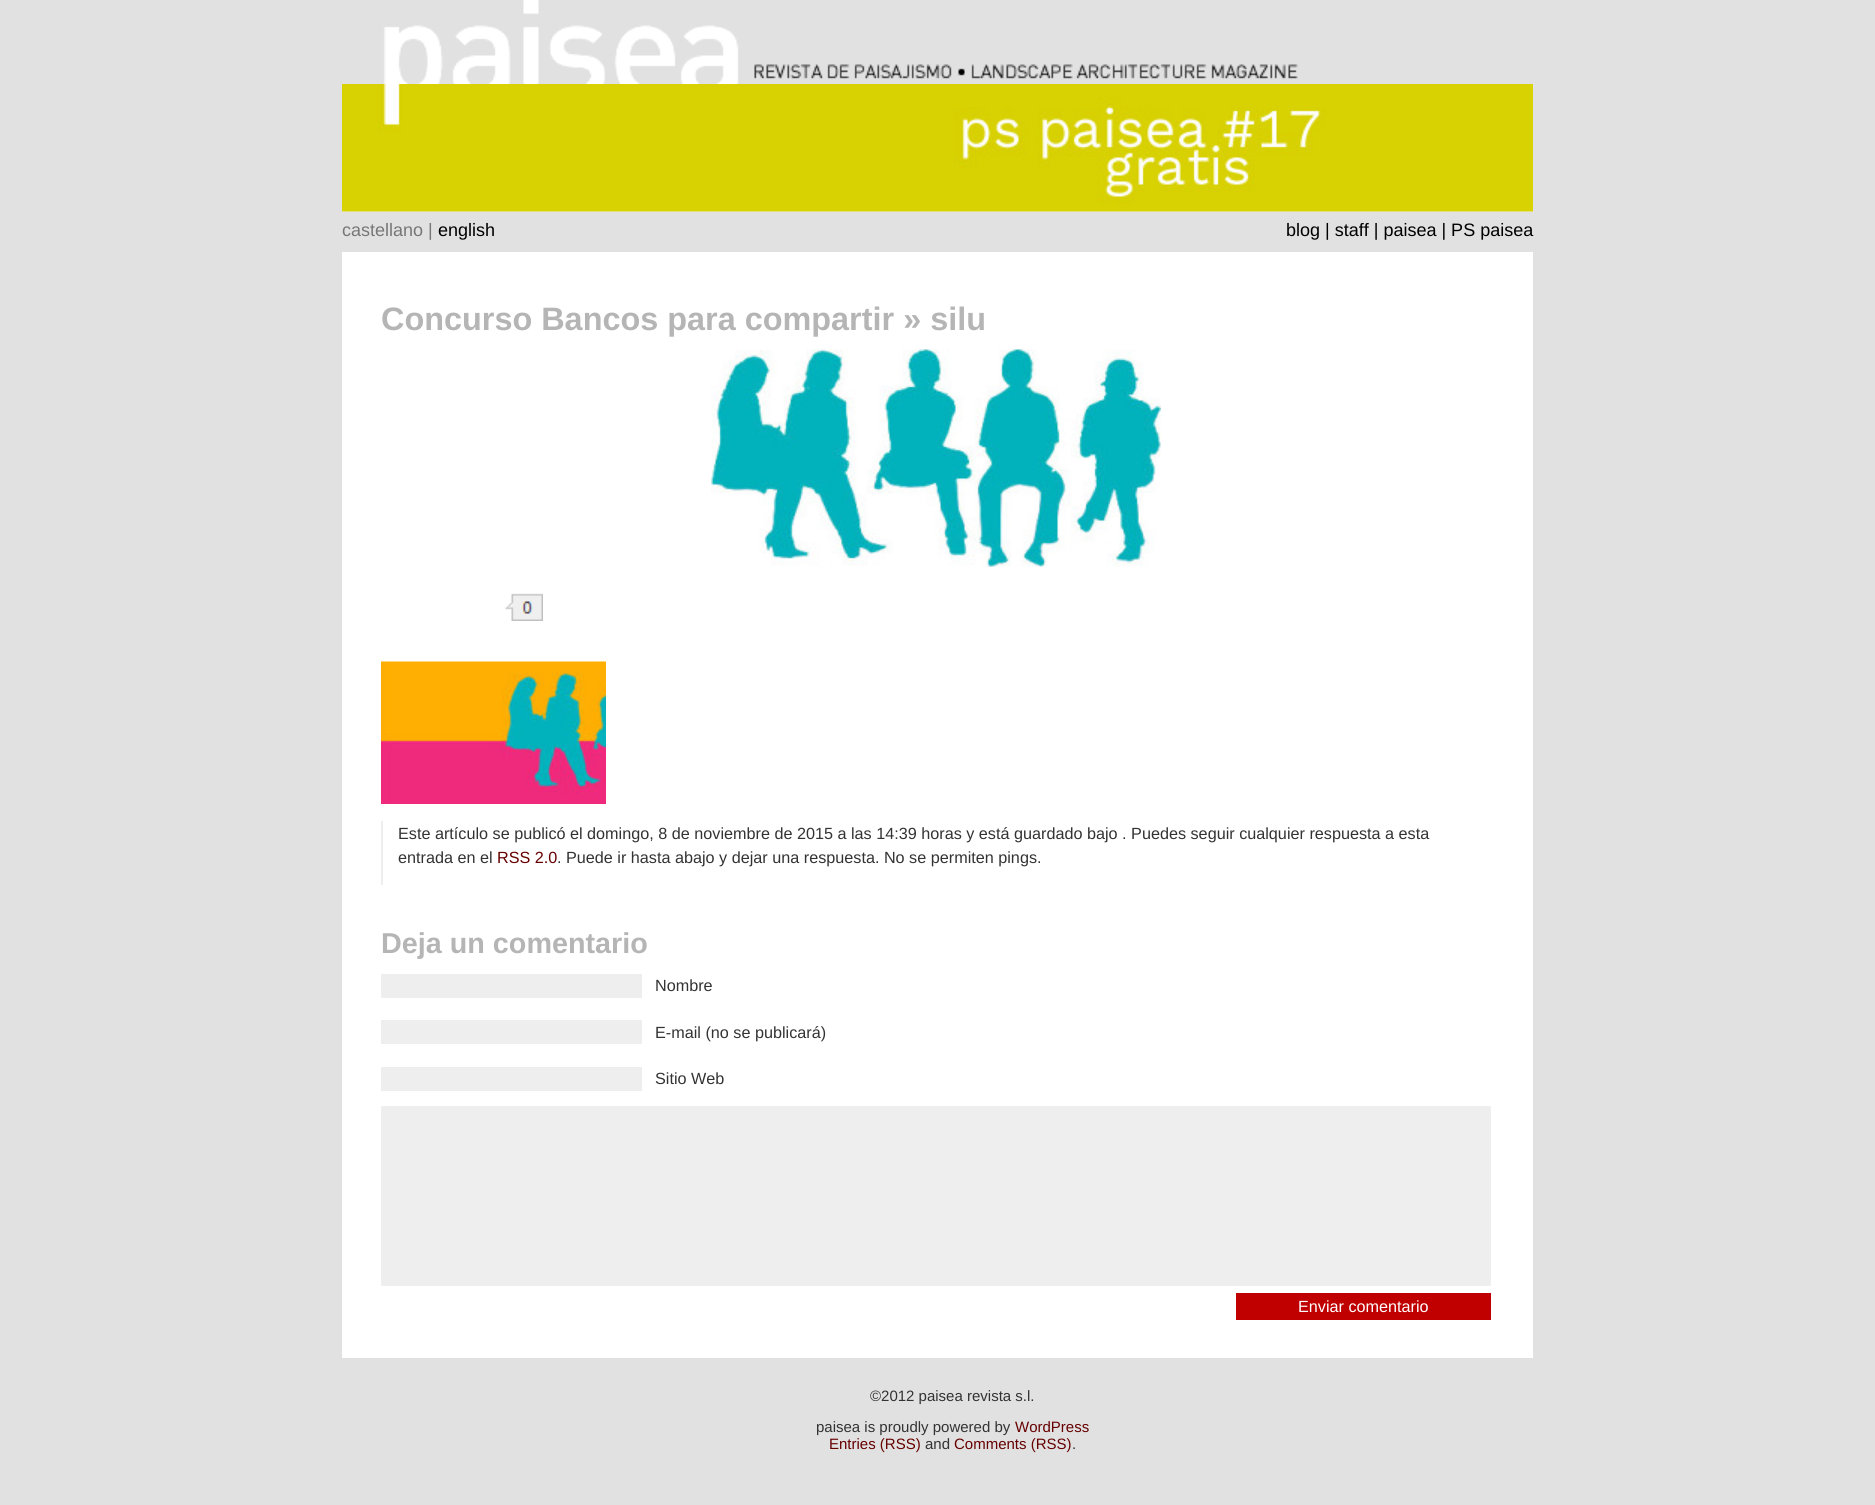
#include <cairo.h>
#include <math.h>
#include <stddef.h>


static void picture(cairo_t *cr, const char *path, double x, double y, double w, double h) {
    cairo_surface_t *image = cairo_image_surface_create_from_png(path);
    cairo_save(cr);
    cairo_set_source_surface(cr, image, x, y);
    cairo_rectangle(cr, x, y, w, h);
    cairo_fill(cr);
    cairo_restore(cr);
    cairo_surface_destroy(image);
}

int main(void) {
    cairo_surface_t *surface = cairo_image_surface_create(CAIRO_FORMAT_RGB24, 1875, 1505);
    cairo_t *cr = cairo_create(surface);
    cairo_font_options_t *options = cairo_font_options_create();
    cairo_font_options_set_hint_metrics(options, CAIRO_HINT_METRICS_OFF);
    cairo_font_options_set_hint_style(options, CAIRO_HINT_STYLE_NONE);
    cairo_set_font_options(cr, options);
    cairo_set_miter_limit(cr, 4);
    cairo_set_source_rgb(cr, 0.882, 0.882, 0.882);
    cairo_paint(cr);
    cairo_set_source_rgb(cr, 1, 1, 1);
    cairo_rectangle(cr, 342, 252, 1191, 1106);
    cairo_fill(cr);
    picture(cr, "img1.png", 342, 0, 1191, 84);
    cairo_set_source_rgb(cr, 0.933, 0.933, 0.933);
    cairo_rectangle(cr, 342, 211, 1191, 1);
    cairo_fill(cr);
    picture(cr, "img2.png", 342, 84, 1191, 128);
    cairo_select_font_face(cr, "Liberation Sans", CAIRO_FONT_SLANT_NORMAL, CAIRO_FONT_WEIGHT_NORMAL);
    cairo_set_font_size(cr, 18);
    cairo_set_source_rgb(cr, 0.467, 0.467, 0.467);
    cairo_move_to(cr, 342, 236);
    cairo_show_text(cr, "castellano |");
    cairo_set_source_rgb(cr, 0, 0, 0);
    cairo_move_to(cr, 438, 236);
    cairo_show_text(cr, "english");
    cairo_move_to(cr, 1286, 236);
    cairo_show_text(cr, "blog | staff | paisea | PS paisea");
    cairo_select_font_face(cr, "Liberation Sans", CAIRO_FONT_SLANT_NORMAL, CAIRO_FONT_WEIGHT_BOLD);
    cairo_set_font_size(cr, 32.4);
    cairo_set_source_rgb(cr, 0.71, 0.71, 0.71);
    cairo_move_to(cr, 381, 330);
    cairo_show_text(cr, "Concurso Bancos para compartir » silu");
    picture(cr, "img3.png", 711, 349, 450, 218);
    picture(cr, "img4.png", 505, 593, 38, 28);
    picture(cr, "img5.png", 381, 661, 225, 143);
    cairo_set_source_rgb(cr, 0.933, 0.933, 0.933);
    cairo_rectangle(cr, 381, 821, 2, 64);
    cairo_fill(cr);
    cairo_select_font_face(cr, "Liberation Sans", CAIRO_FONT_SLANT_NORMAL, CAIRO_FONT_WEIGHT_NORMAL);
    cairo_set_font_size(cr, 16.2);
    cairo_set_source_rgb(cr, 0.2, 0.2, 0.2);
    cairo_move_to(cr, 398, 839);
    cairo_show_text(cr, "Este artículo se publicó el domingo, 8 de noviembre de 2015 a las 14:39 horas y está guardado bajo . Puedes seguir cualquier respuesta a esta");
    cairo_move_to(cr, 398, 863);
    cairo_show_text(cr, "entrada en el");
    cairo_set_source_rgb(cr, 0.4, 0, 0);
    cairo_move_to(cr, 497, 863);
    cairo_show_text(cr, "RSS 2.0");
    cairo_set_source_rgb(cr, 0.2, 0.2, 0.2);
    cairo_move_to(cr, 557, 863);
    cairo_show_text(cr, ". Puede ir hasta abajo y dejar una respuesta. No se permiten pings.");
    cairo_select_font_face(cr, "Liberation Sans", CAIRO_FONT_SLANT_NORMAL, CAIRO_FONT_WEIGHT_BOLD);
    cairo_set_font_size(cr, 28.75);
    cairo_set_source_rgb(cr, 0.71, 0.71, 0.71);
    cairo_move_to(cr, 381, 953);
    cairo_show_text(cr, "Deja un comentario");
    cairo_set_source_rgb(cr, 0.933, 0.933, 0.933);
    cairo_rectangle(cr, 381, 974, 261, 24);
    cairo_fill(cr);
    cairo_select_font_face(cr, "Liberation Sans", CAIRO_FONT_SLANT_NORMAL, CAIRO_FONT_WEIGHT_NORMAL);
    cairo_set_font_size(cr, 16.2);
    cairo_set_source_rgb(cr, 0.2, 0.2, 0.2);
    cairo_move_to(cr, 655, 991);
    cairo_show_text(cr, "Nombre");
    cairo_set_source_rgb(cr, 0.933, 0.933, 0.933);
    cairo_rectangle(cr, 381, 1020, 261, 24);
    cairo_fill(cr);
    cairo_set_source_rgb(cr, 0.2, 0.2, 0.2);
    cairo_move_to(cr, 655, 1038);
    cairo_show_text(cr, "E-mail (no se publicará)");
    cairo_set_source_rgb(cr, 0.933, 0.933, 0.933);
    cairo_rectangle(cr, 381, 1067, 261, 24);
    cairo_fill(cr);
    cairo_set_source_rgb(cr, 0.2, 0.2, 0.2);
    cairo_move_to(cr, 655, 1084);
    cairo_show_text(cr, "Sitio Web");
    cairo_set_source_rgb(cr, 0.933, 0.933, 0.933);
    cairo_rectangle(cr, 381, 1106, 1110, 180);
    cairo_fill(cr);
    cairo_set_source_rgb(cr, 0.753, 0, 0);
    cairo_rectangle(cr, 1236, 1293, 255, 27);
    cairo_fill(cr);
    cairo_set_source_rgb(cr, 1, 1, 1);
    cairo_move_to(cr, 1298, 1312);
    cairo_show_text(cr, "Enviar comentario");
    cairo_set_font_size(cr, 15);
    cairo_set_source_rgb(cr, 0.2, 0.2, 0.2);
    cairo_move_to(cr, 870, 1401);
    cairo_show_text(cr, "©2012 paisea revista s.l.");
    cairo_move_to(cr, 816, 1432);
    cairo_show_text(cr, "paisea is proudly powered by");
    cairo_set_source_rgb(cr, 0.4, 0, 0);
    cairo_move_to(cr, 1015, 1432);
    cairo_show_text(cr, "WordPress");
    cairo_move_to(cr, 829, 1449);
    cairo_show_text(cr, "Entries (RSS)");
    cairo_set_source_rgb(cr, 0.2, 0.2, 0.2);
    cairo_move_to(cr, 925, 1449);
    cairo_show_text(cr, "and");
    cairo_set_source_rgb(cr, 0.4, 0, 0);
    cairo_move_to(cr, 954, 1449);
    cairo_show_text(cr, "Comments (RSS)");
    cairo_set_source_rgb(cr, 0.2, 0.2, 0.2);
    cairo_move_to(cr, 1072, 1449);
    cairo_show_text(cr, ".");
    cairo_surface_write_to_png(surface, "page.png");
    cairo_font_options_destroy(options);
    cairo_destroy(cr);
    cairo_surface_destroy(surface);
    return 0;
}
